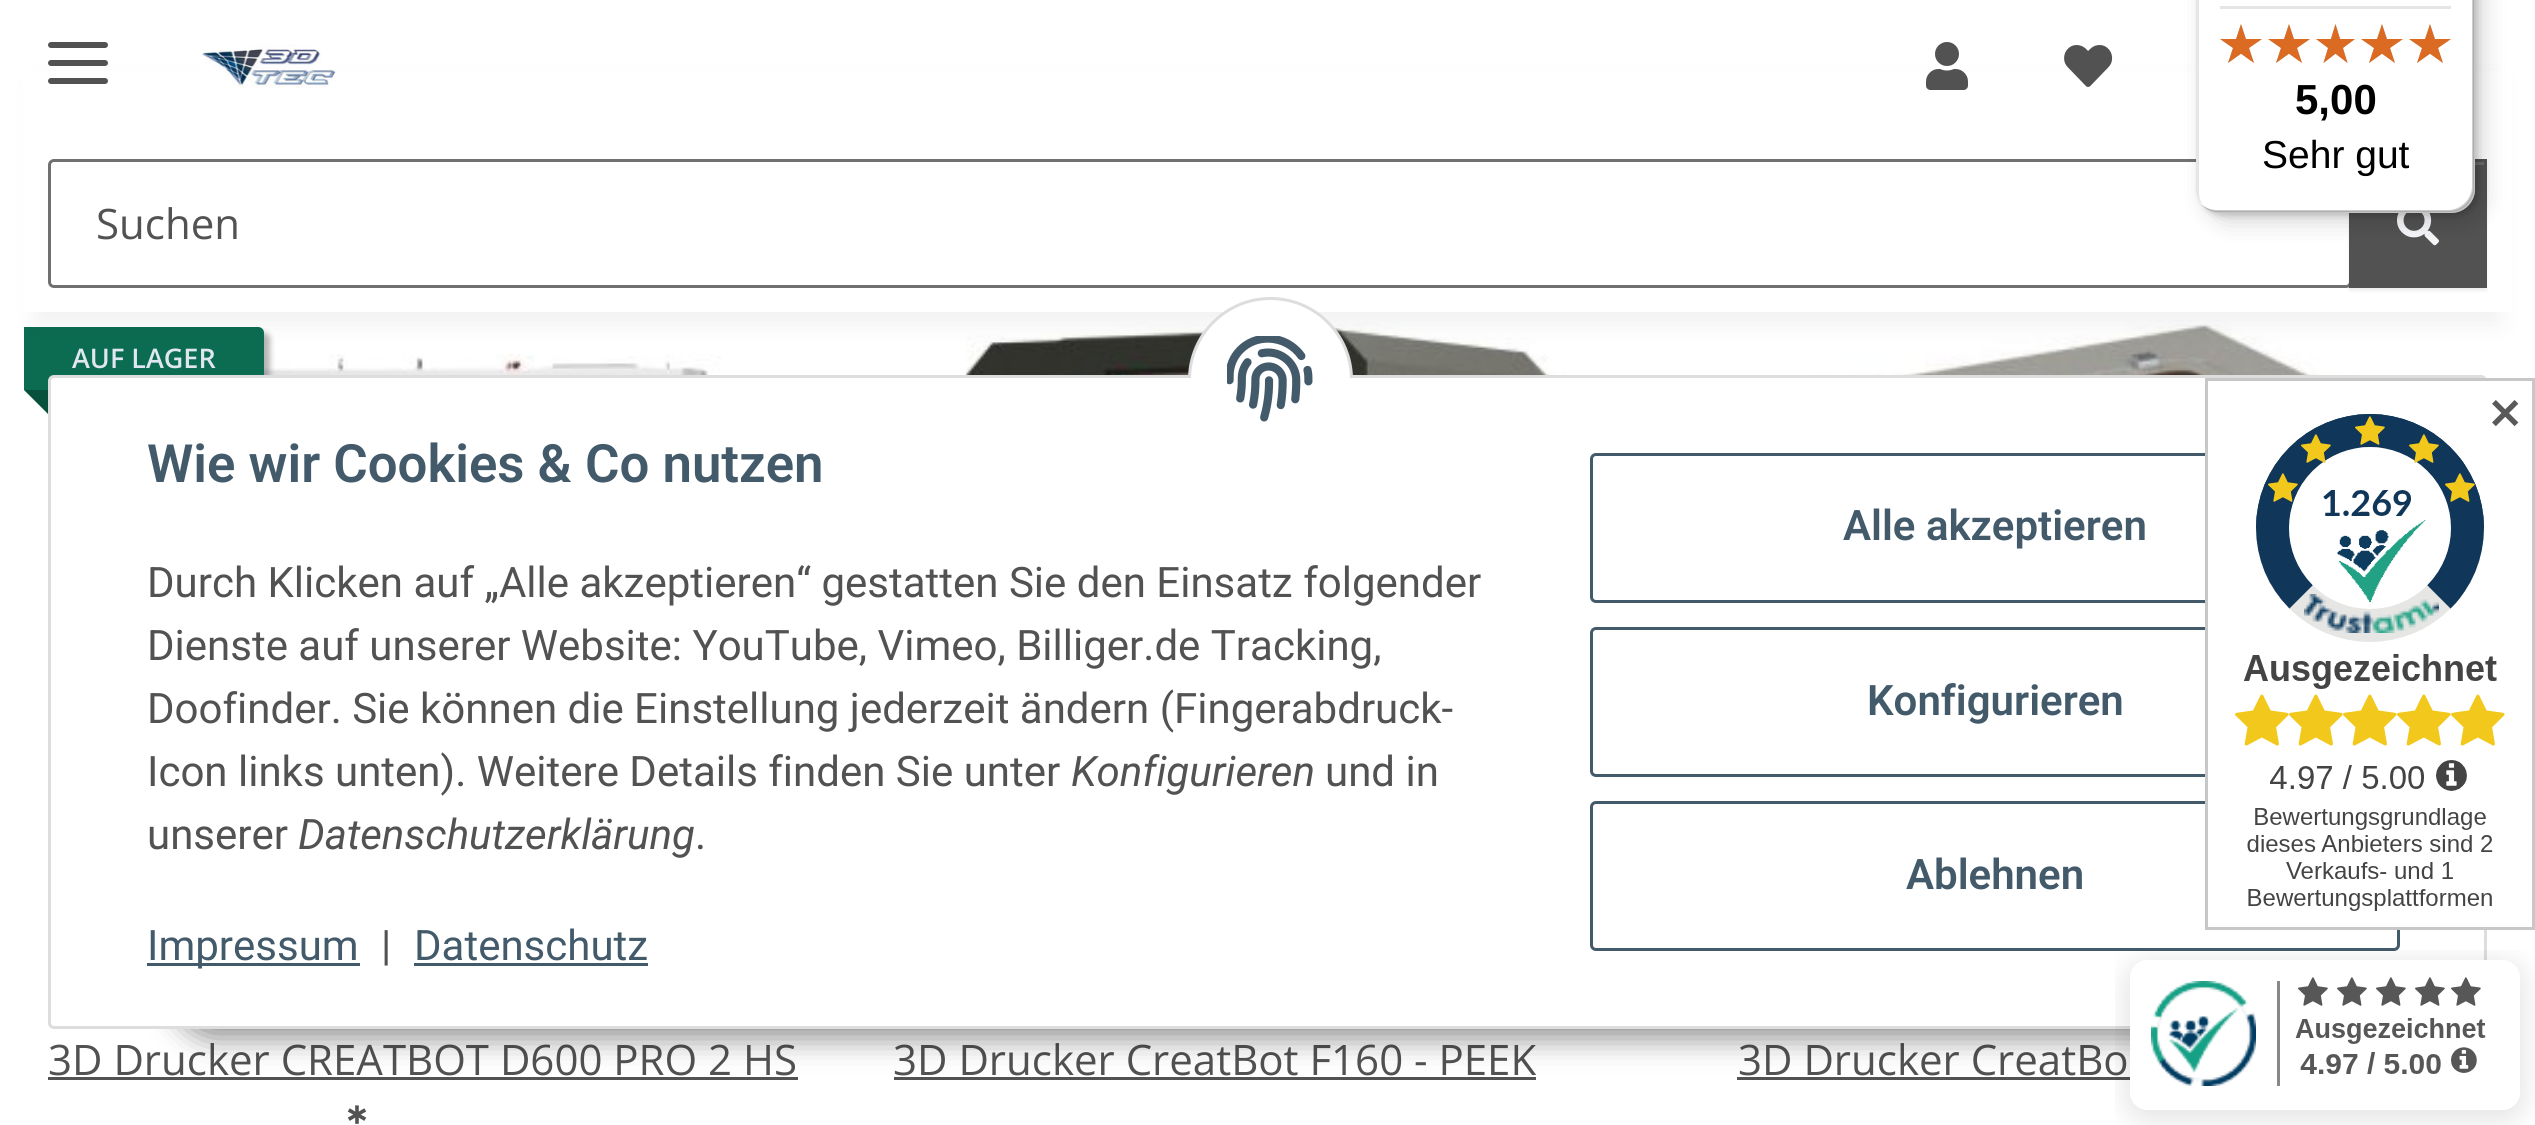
#include <cairo.h>
#include <math.h>
#include <stddef.h>


static void round_rect(cairo_t *cr, double x, double y, double w, double h, double r) {
    cairo_new_sub_path(cr);
    cairo_arc(cr, x + w - r, y + h - r, r, 0, M_PI / 2);
    cairo_arc(cr, x + r, y + h - r, r, M_PI / 2, M_PI);
    cairo_arc(cr, x + r, y + r, r, M_PI, 1.5 * M_PI);
    cairo_arc(cr, x + w - r, y + r, r, 1.5 * M_PI, 2 * M_PI);
    cairo_close_path(cr);
}

static void shadow(cairo_t *cr, double x, double y, double w, double h, double r, double blur, double alpha) {
    cairo_push_group_with_content(cr, CAIRO_CONTENT_ALPHA);
    cairo_set_operator(cr, CAIRO_OPERATOR_SOURCE);
    for (int i = 15; i >= -15 && fmin(w, h) + blur * i / 3 > 0; i -= 2) {
        double e = blur * i / 6;
        cairo_set_source_rgba(cr, 0, 0, 0, alpha * erfc((i - 1) / 8.5) / 2);
        round_rect(cr, x - e, y - e, w + 2 * e, h + 2 * e, fmax(0, fmin(r + e + blur * .6, fmin(w, h) / 2 + e)));
        cairo_fill(cr);
    }
    cairo_pattern_t *soft = cairo_pop_group(cr);
    cairo_mask(cr, soft);
    cairo_pattern_destroy(soft);
}

static void picture(cairo_t *cr, const char *path, double x, double y, double w, double h) {
    cairo_surface_t *image = cairo_image_surface_create_from_png(path);
    cairo_save(cr);
    cairo_set_source_surface(cr, image, x, y);
    cairo_rectangle(cr, x, y, w, h);
    cairo_fill(cr);
    cairo_restore(cr);
    cairo_surface_destroy(image);
}

int main(void) {
    cairo_surface_t *surface = cairo_image_surface_create(CAIRO_FORMAT_RGB24, 2535, 1125);
    cairo_t *cr = cairo_create(surface);
    cairo_font_options_t *options = cairo_font_options_create();
    cairo_font_options_set_hint_metrics(options, CAIRO_HINT_METRICS_OFF);
    cairo_font_options_set_hint_style(options, CAIRO_HINT_STYLE_NONE);
    cairo_set_font_options(cr, options);
    cairo_set_miter_limit(cr, 4);
    cairo_set_source_rgb(cr, 1, 1, 1);
    cairo_paint(cr);
    picture(cr, "img9.png", 264, 354, 457, 21);
    cairo_set_source_rgb(cr, 0, 0, 0);
    shadow(cr, 30, 333, 240, 63, 6, 3, 0.3);
    cairo_set_source_rgb(cr, 0.043, 0.424, 0.318);
    cairo_new_path(cr);
    cairo_move_to(cr, 24, 327);
    cairo_line_to(cr, 258, 327);
    cairo_curve_to(cr, 261.5, 327, 264, 329.5, 264, 333);
    cairo_line_to(cr, 264, 384);
    cairo_curve_to(cr, 264, 387.5, 261.5, 390, 258, 390);
    cairo_line_to(cr, 24, 390);
    cairo_close_path(cr);
    cairo_fill(cr);
    picture(cr, "img10.png", 919, 322, 699, 53);
    picture(cr, "img11.png", 1775, 320, 632, 55);
    cairo_set_source_rgb(cr, 0, 0, 0);
    shadow(cr, 36, 84, 2463, 240, 0, 13.5, 0.06);
    cairo_set_source_rgb(cr, 1, 1, 1);
    cairo_rectangle(cr, 23, 71, 2489, 241);
    cairo_fill(cr);
    round_rect(cr, 49.5, 160.5, 2301, 126, 4.5);
    cairo_set_source_rgb(cr, 0.439, 0.439, 0.439);
    cairo_set_line_width(cr, 3);
    cairo_stroke(cr);
    cairo_set_source_rgb(cr, 0, 0, 0);
    shadow(cr, 2349, 162, 138, 129, 0, 1.5, 0.07);
    cairo_set_source_rgb(cr, 0.322, 0.322, 0.322);
    cairo_rectangle(cr, 2349, 159, 138, 129);
    cairo_fill(cr);
    cairo_set_source_rgb(cr, 0.424, 0.424, 0.424);
    cairo_rectangle(cr, 2475, 162, 9, 3);
    cairo_fill(cr);
    picture(cr, "img8.png", 2397, 213, 42, 33);
    cairo_set_source_rgb(cr, 0, 0, 0);
    shadow(cr, 2205, -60, 279, 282, 24, 12, 0.15);
    shadow(cr, 2199, -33, 279, 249, 24, 3, 0.15);
    cairo_set_source_rgb(cr, 1, 1, 1);
    round_rect(cr, 2196, -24, 279, 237, 24);
    cairo_fill(cr);
    cairo_set_source_rgba(cr, 0, 0, 0, 0.1);
    cairo_new_path(cr);
    cairo_move_to(cr, 2223, -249);
    cairo_line_to(cr, 2454, -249);
    cairo_curve_to(cr, 2460, -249, 2466, -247, 2470, -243);
    cairo_curve_to(cr, 2465, -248, 2459, -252, 2451, -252);
    cairo_line_to(cr, 2220, -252);
    cairo_curve_to(cr, 2207, -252, 2196, -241, 2196, -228);
    cairo_line_to(cr, 2196, 189);
    cairo_curve_to(cr, 2196, 197, 2200, 203, 2205, 208);
    cairo_curve_to(cr, 2201, 204, 2199, 198, 2199, 192);
    cairo_line_to(cr, 2199, -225);
    cairo_curve_to(cr, 2199, -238, 2210, -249, 2223, -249);
    cairo_close_path(cr);
    cairo_fill(cr);
    cairo_set_source_rgba(cr, 0, 0, 0, 0.2);
    cairo_new_path(cr);
    cairo_move_to(cr, 2201, 204);
    cairo_curve_to(cr, 2206, 209, 2212, 213, 2220, 213);
    cairo_line_to(cr, 2451, 213);
    cairo_curve_to(cr, 2464, 213, 2475, 202, 2475, 189);
    cairo_line_to(cr, 2475, -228);
    cairo_curve_to(cr, 2475, -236, 2471, -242, 2466, -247);
    cairo_curve_to(cr, 2470, -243, 2472, -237, 2472, -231);
    cairo_line_to(cr, 2472, 186);
    cairo_curve_to(cr, 2472, 199, 2461, 210, 2448, 210);
    cairo_line_to(cr, 2217, 210);
    cairo_curve_to(cr, 2211, 210, 2205, 208, 2201, 204);
    cairo_close_path(cr);
    cairo_fill(cr);
    cairo_set_source_rgba(cr, 0.196, 0.196, 0.196, 0.2);
    cairo_new_path(cr);
    cairo_move_to(cr, 2201, 204);
    cairo_curve_to(cr, 2206, 210, 2212, 213, 2220, 213);
    cairo_line_to(cr, 2451, 213);
    cairo_curve_to(cr, 2464, 213, 2475, 202, 2475, 189);
    cairo_line_to(cr, 2475, -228);
    cairo_curve_to(cr, 2475, -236, 2472, -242, 2466, -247);
    cairo_curve_to(cr, 2470, -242, 2473, -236, 2473, -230);
    cairo_line_to(cr, 2473, 187);
    cairo_curve_to(cr, 2473, 200, 2462, 211, 2449, 211);
    cairo_line_to(cr, 2218, 211);
    cairo_curve_to(cr, 2212, 211, 2206, 208, 2201, 204);
    cairo_close_path(cr);
    cairo_fill(cr);
    cairo_set_source_rgba(cr, 1, 1, 1, 0.3);
    cairo_new_path(cr);
    cairo_move_to(cr, 2207, 209);
    cairo_curve_to(cr, 2211, 212, 2215, 213, 2220, 213);
    cairo_line_to(cr, 2451, 213);
    cairo_curve_to(cr, 2464, 213, 2475, 202, 2475, 189);
    cairo_line_to(cr, 2475, -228);
    cairo_curve_to(cr, 2475, -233, 2474, -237, 2471, -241);
    cairo_curve_to(cr, 2473, -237, 2474, -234, 2474, -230);
    cairo_line_to(cr, 2474, 188);
    cairo_curve_to(cr, 2474, 201, 2463, 212, 2450, 212);
    cairo_line_to(cr, 2218, 212);
    cairo_curve_to(cr, 2214, 212, 2211, 211, 2207, 209);
    cairo_close_path(cr);
    cairo_fill(cr);
    cairo_set_source_rgb(cr, 0.898, 0.898, 0.898);
    cairo_rectangle(cr, 2220, 6, 231, 3);
    cairo_fill(cr);
    picture(cr, "img1.png", 2220, 24, 42, 39);
    picture(cr, "img1.png", 2268, 24, 42, 39);
    picture(cr, "img2.png", 2316, 24, 39, 39);
    picture(cr, "img1.png", 2361, 24, 42, 39);
    picture(cr, "img1.png", 2409, 24, 42, 39);
    picture(cr, "img3.png", 2220, 24, 42, 39);
    picture(cr, "img3.png", 2268, 24, 42, 39);
    picture(cr, "img4.png", 2316, 24, 39, 39);
    picture(cr, "img3.png", 2361, 24, 42, 39);
    picture(cr, "img3.png", 2409, 24, 42, 39);
    cairo_select_font_face(cr, "Liberation Sans", CAIRO_FONT_SLANT_NORMAL, CAIRO_FONT_WEIGHT_BOLD);
    cairo_set_font_size(cr, 42);
    cairo_set_source_rgb(cr, 0, 0, 0);
    cairo_move_to(cr, 2295, 114);
    cairo_show_text(cr, "5,00");
    cairo_select_font_face(cr, "Liberation Sans", CAIRO_FONT_SLANT_NORMAL, CAIRO_FONT_WEIGHT_NORMAL);
    cairo_set_font_size(cr, 39);
    cairo_move_to(cr, 2262, 168);
    cairo_show_text(cr, "Sehr gut");
    cairo_set_source_rgb(cr, 0.322, 0.322, 0.322);
    round_rect(cr, 48, 60, 60, 6, 3);
    cairo_fill(cr);
    round_rect(cr, 48, 42, 60, 6, 3);
    cairo_fill(cr);
    round_rect(cr, 48, 78, 60, 6, 3);
    cairo_fill(cr);
    picture(cr, "img5.png", 200, 44, 136, 44);
    picture(cr, "img6.png", 1926, 42, 42, 48);
    picture(cr, "img7.png", 2064, 45, 49, 42);
    cairo_select_font_face(cr, "Open Sans", CAIRO_FONT_SLANT_NORMAL, CAIRO_FONT_WEIGHT_NORMAL);
    cairo_set_font_size(cr, 42);
    cairo_move_to(cr, 96, 239);
    cairo_show_text(cr, "Suchen");
    cairo_select_font_face(cr, "Open Sans SemiBold", CAIRO_FONT_SLANT_NORMAL, CAIRO_FONT_WEIGHT_NORMAL);
    cairo_set_font_size(cr, 27);
    cairo_set_source_rgb(cr, 0.882, 0.906, 0.941);
    cairo_move_to(cr, 72, 368);
    cairo_show_text(cr, "AUF LAGER");
    cairo_set_source_rgb(cr, 0.031, 0.314, 0.235);
    cairo_new_path(cr);
    cairo_move_to(cr, 48, 390);
    cairo_line_to(cr, 48, 414);
    cairo_line_to(cr, 24, 390);
    cairo_close_path(cr);
    cairo_fill(cr);
    cairo_select_font_face(cr, "Open Sans", CAIRO_FONT_SLANT_NORMAL, CAIRO_FONT_WEIGHT_NORMAL);
    cairo_set_font_size(cr, 42);
    cairo_set_source_rgb(cr, 0.322, 0.322, 0.322);
    cairo_move_to(cr, 48, 1075);
    cairo_show_text(cr, "3D Drucker CREATBOT D600 PRO 2 HS");
    cairo_rectangle(cr, 48, 1077, 750, 3);
    cairo_fill(cr);
    cairo_select_font_face(cr, "Montserrat SemiBold", CAIRO_FONT_SLANT_NORMAL, CAIRO_FONT_WEIGHT_NORMAL);
    cairo_set_font_size(cr, 48);
    cairo_move_to(cr, 347, 1141);
    cairo_show_text(cr, "*");
    cairo_select_font_face(cr, "Open Sans", CAIRO_FONT_SLANT_NORMAL, CAIRO_FONT_WEIGHT_NORMAL);
    cairo_set_font_size(cr, 42);
    cairo_move_to(cr, 893, 1075);
    cairo_show_text(cr, "3D Drucker CreatBot F160 - PEEK");
    cairo_rectangle(cr, 894, 1077, 642, 3);
    cairo_fill(cr);
    cairo_move_to(cr, 1738, 1075);
    cairo_show_text(cr, "3D Drucker CreatBo");
    cairo_rectangle(cr, 1737, 1077, 393, 3);
    cairo_fill(cr);
    cairo_set_source_rgb(cr, 0, 0, 0);
    shadow(cr, 174, 942, 2187, 96, 48, 15, 0.45);
    cairo_set_source_rgb(cr, 1, 1, 1);
    round_rect(cr, 49.5, 376.5, 2436, 651, 4.5);
    cairo_fill_preserve(cr);
    cairo_set_source_rgb(cr, 0.867, 0.867, 0.867);
    cairo_stroke(cr);
    round_rect(cr, 1591.5, 454.5, 807, 147, 4.5);
    cairo_set_source_rgb(cr, 0.263, 0.353, 0.42);
    cairo_stroke(cr);
    round_rect(cr, 1591.5, 628.5, 807, 147, 4.5);
    cairo_stroke(cr);
    round_rect(cr, 1591.5, 802.5, 807, 147, 4.5);
    cairo_stroke(cr);
    picture(cr, "img12.png", 2205, 378, 330, 552);
    cairo_select_font_face(cr, "DejaVu Sans", CAIRO_FONT_SLANT_NORMAL, CAIRO_FONT_WEIGHT_BOLD);
    cairo_set_source_rgb(cr, 0.349, 0.349, 0.349);
    cairo_move_to(cr, 2487, 429);
    cairo_show_text(cr, "✕");
    picture(cr, "img13.png", 2115, 950, 420, 175);
    cairo_set_source_rgb(cr, 1, 1, 1);
    cairo_arc(cr, 1270.5, 379.5, 81, 0, 2 * M_PI);
    cairo_fill_preserve(cr);
    cairo_set_source_rgb(cr, 0.867, 0.867, 0.867);
    cairo_stroke(cr);
    cairo_set_source_rgb(cr, 1, 1, 1);
    cairo_rectangle(cr, 1188, 378, 165, 84);
    cairo_fill(cr);
    picture(cr, "img14.png", 1227, 336, 86, 86);
    cairo_select_font_face(cr, "Roboto SemiBold", CAIRO_FONT_SLANT_NORMAL, CAIRO_FONT_WEIGHT_NORMAL);
    cairo_set_font_size(cr, 52.75);
    cairo_set_source_rgb(cr, 0.263, 0.353, 0.42);
    cairo_move_to(cr, 147, 482);
    cairo_show_text(cr, "Wie wir Cookies & Co nutzen");
    cairo_select_font_face(cr, "Roboto", CAIRO_FONT_SLANT_NORMAL, CAIRO_FONT_WEIGHT_NORMAL);
    cairo_set_font_size(cr, 42);
    cairo_set_source_rgb(cr, 0.322, 0.322, 0.322);
    cairo_move_to(cr, 147, 597);
    cairo_show_text(cr, "Durch Klicken auf „Alle akzeptieren“ gestatten Sie den Einsatz folgender");
    cairo_move_to(cr, 147, 660);
    cairo_show_text(cr, "Dienste auf unserer Website: YouTube, Vimeo, Billiger.de Tracking,");
    cairo_move_to(cr, 147, 723);
    cairo_show_text(cr, "Doofinder. Sie können die Einstellung jederzeit ändern (Fingerabdruck-");
    cairo_move_to(cr, 147, 786);
    cairo_show_text(cr, "Icon links unten). Weitere Details finden Sie unter");
    cairo_select_font_face(cr, "Roboto", CAIRO_FONT_SLANT_ITALIC, CAIRO_FONT_WEIGHT_NORMAL);
    cairo_move_to(cr, 1071, 786);
    cairo_show_text(cr, "Konfigurieren");
    cairo_select_font_face(cr, "Roboto", CAIRO_FONT_SLANT_NORMAL, CAIRO_FONT_WEIGHT_NORMAL);
    cairo_move_to(cr, 1325, 786);
    cairo_show_text(cr, "und in");
    cairo_move_to(cr, 147, 849);
    cairo_show_text(cr, "unserer");
    cairo_select_font_face(cr, "Roboto", CAIRO_FONT_SLANT_ITALIC, CAIRO_FONT_WEIGHT_NORMAL);
    cairo_move_to(cr, 298, 849);
    cairo_show_text(cr, "Datenschutzerklärung");
    cairo_select_font_face(cr, "Roboto", CAIRO_FONT_SLANT_NORMAL, CAIRO_FONT_WEIGHT_NORMAL);
    cairo_move_to(cr, 695, 849);
    cairo_show_text(cr, ".");
    cairo_set_source_rgb(cr, 0.263, 0.353, 0.42);
    cairo_rectangle(cr, 147, 963, 213, 3);
    cairo_fill(cr);
    cairo_move_to(cr, 147, 960);
    cairo_show_text(cr, "Impressum");
    cairo_set_source_rgb(cr, 0.322, 0.322, 0.322);
    cairo_move_to(cr, 381, 960);
    cairo_show_text(cr, "|");
    cairo_set_source_rgb(cr, 0.263, 0.353, 0.42);
    cairo_move_to(cr, 414, 960);
    cairo_show_text(cr, "Datenschutz");
    cairo_rectangle(cr, 414, 963, 234, 3);
    cairo_fill(cr);
    cairo_select_font_face(cr, "Roboto SemiBold", CAIRO_FONT_SLANT_NORMAL, CAIRO_FONT_WEIGHT_NORMAL);
    cairo_move_to(cr, 1843, 540);
    cairo_show_text(cr, "Alle akzeptieren");
    cairo_move_to(cr, 1867, 715);
    cairo_show_text(cr, "Konfigurieren");
    cairo_move_to(cr, 1906, 889);
    cairo_show_text(cr, "Ablehnen");
    cairo_surface_write_to_png(surface, "page.png");
    cairo_font_options_destroy(options);
    cairo_destroy(cr);
    cairo_surface_destroy(surface);
    return 0;
}
